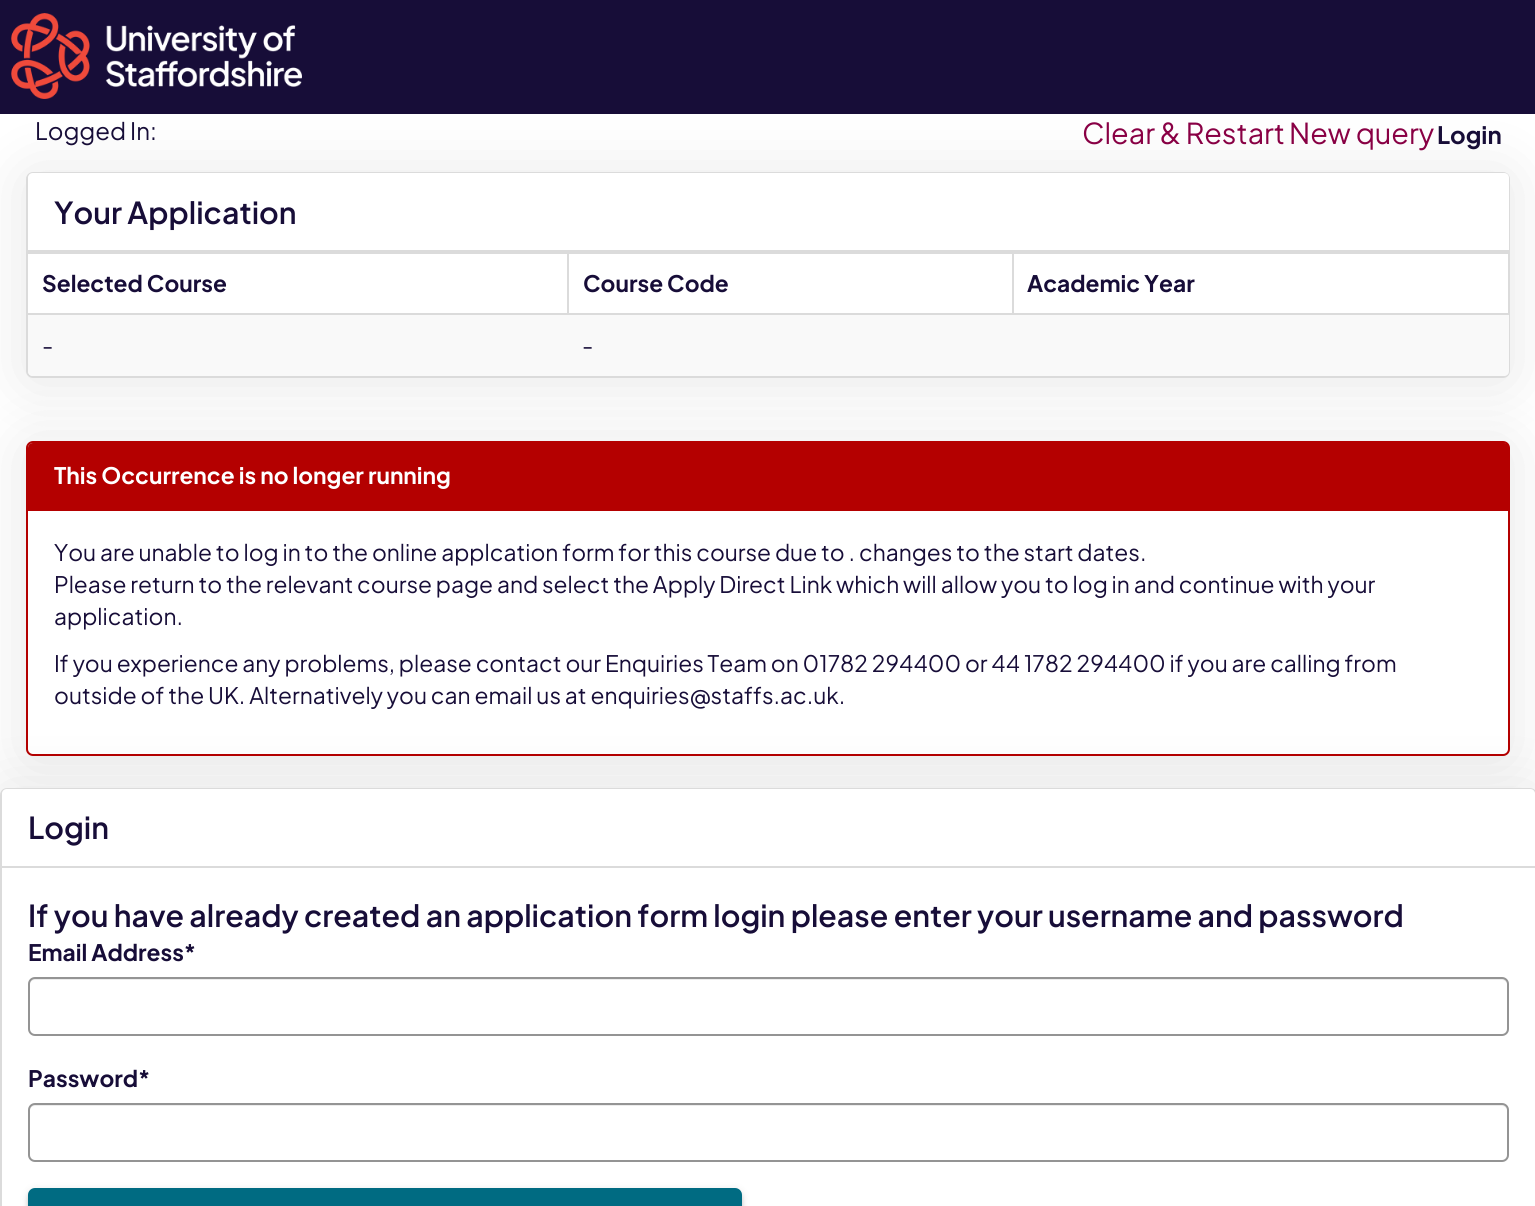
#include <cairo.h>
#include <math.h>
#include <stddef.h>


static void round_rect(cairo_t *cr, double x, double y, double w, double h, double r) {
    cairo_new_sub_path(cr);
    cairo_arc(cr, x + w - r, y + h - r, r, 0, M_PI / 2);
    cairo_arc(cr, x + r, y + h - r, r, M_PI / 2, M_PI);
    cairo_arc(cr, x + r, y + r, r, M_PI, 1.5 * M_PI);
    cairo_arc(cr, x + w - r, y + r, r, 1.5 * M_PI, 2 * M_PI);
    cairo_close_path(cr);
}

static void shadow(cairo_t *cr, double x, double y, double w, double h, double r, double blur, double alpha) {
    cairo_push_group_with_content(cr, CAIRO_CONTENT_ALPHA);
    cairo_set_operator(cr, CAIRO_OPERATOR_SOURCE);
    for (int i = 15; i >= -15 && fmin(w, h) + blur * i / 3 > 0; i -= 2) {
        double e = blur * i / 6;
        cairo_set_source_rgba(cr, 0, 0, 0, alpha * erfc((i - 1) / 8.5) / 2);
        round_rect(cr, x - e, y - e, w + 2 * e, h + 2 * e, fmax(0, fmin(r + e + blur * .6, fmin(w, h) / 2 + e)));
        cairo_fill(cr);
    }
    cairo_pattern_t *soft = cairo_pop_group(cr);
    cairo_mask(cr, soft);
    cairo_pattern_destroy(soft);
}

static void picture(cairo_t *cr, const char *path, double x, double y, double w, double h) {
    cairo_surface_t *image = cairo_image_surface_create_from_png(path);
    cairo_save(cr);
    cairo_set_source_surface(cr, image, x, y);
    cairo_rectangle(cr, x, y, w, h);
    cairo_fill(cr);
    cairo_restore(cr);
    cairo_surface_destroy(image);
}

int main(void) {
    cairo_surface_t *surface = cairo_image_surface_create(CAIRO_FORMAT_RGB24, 1535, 1206);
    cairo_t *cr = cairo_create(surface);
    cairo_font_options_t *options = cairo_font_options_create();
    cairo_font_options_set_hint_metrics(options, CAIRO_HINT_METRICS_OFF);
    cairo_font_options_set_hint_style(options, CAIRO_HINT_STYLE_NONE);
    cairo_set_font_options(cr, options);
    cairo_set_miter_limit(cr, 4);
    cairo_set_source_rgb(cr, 1, 1, 1);
    cairo_paint(cr);
    cairo_set_source_rgb(cr, 0.09, 0.051, 0.22);
    cairo_rectangle(cr, 0, 0, 1535, 114);
    cairo_fill(cr);
    picture(cr, "img1.png", 11, 13, 291, 86);
    cairo_select_font_face(cr, "Plus Jakarta Sans", CAIRO_FONT_SLANT_NORMAL, CAIRO_FONT_WEIGHT_NORMAL);
    cairo_set_font_size(cr, 24);
    cairo_move_to(cr, 35, 140);
    cairo_show_text(cr, "Logged In:");
    cairo_set_font_size(cr, 28.75);
    cairo_set_source_rgb(cr, 0.541, 0, 0.271);
    cairo_move_to(cr, 1082, 144);
    cairo_show_text(cr, "Clear & Restart");
    cairo_move_to(cr, 1289, 144);
    cairo_show_text(cr, "New query");
    cairo_select_font_face(cr, "Plus Jakarta Sans", CAIRO_FONT_SLANT_NORMAL, CAIRO_FONT_WEIGHT_BOLD);
    cairo_set_font_size(cr, 24);
    cairo_set_source_rgb(cr, 0.09, 0.051, 0.22);
    cairo_move_to(cr, 1437, 144);
    cairo_show_text(cr, "Login");
    cairo_set_source_rgb(cr, 0, 0, 0);
    shadow(cr, 26, 445, 1484, 315, 7, 30, 0.1);
    cairo_set_source_rgb(cr, 1, 1, 1);
    round_rect(cr, 27, 442, 1482, 313, 6);
    cairo_fill_preserve(cr);
    cairo_set_source_rgb(cr, 0.706, 0, 0);
    cairo_stroke(cr);
    cairo_new_path(cr);
    cairo_move_to(cr, 33, 443);
    cairo_line_to(cr, 1504, 443);
    cairo_curve_to(cr, 1507, 443, 1509, 445, 1509, 448);
    cairo_line_to(cr, 1509, 511);
    cairo_line_to(cr, 28, 511);
    cairo_line_to(cr, 28, 448);
    cairo_curve_to(cr, 28, 445, 30, 443, 33, 443);
    cairo_close_path(cr);
    cairo_fill(cr);
    cairo_set_source_rgb(cr, 0, 0, 0);
    shadow(cr, 26, 175, 1484, 207, 7, 30, 0.1);
    cairo_set_source_rgb(cr, 1, 1, 1);
    round_rect(cr, 27, 173, 1482, 204, 6);
    cairo_fill_preserve(cr);
    cairo_set_source_rgb(cr, 0.859, 0.859, 0.859);
    cairo_stroke(cr);
    cairo_set_source_rgb(cr, 1, 1, 1);
    cairo_new_path(cr);
    cairo_move_to(cr, 33, 173);
    cairo_line_to(cr, 1504, 173);
    cairo_curve_to(cr, 1507, 173, 1509, 175, 1509, 178);
    cairo_line_to(cr, 1509, 252);
    cairo_line_to(cr, 28, 252);
    cairo_line_to(cr, 28, 178);
    cairo_curve_to(cr, 28, 175, 30, 173, 33, 173);
    cairo_close_path(cr);
    cairo_fill(cr);
    cairo_set_source_rgb(cr, 0.859, 0.859, 0.859);
    cairo_rectangle(cr, 28, 250, 1481, 2);
    cairo_fill(cr);
    cairo_select_font_face(cr, "Plus Jakarta Sans SemiBold", CAIRO_FONT_SLANT_NORMAL, CAIRO_FONT_WEIGHT_NORMAL);
    cairo_set_font_size(cr, 30.25);
    cairo_set_source_rgb(cr, 0.09, 0.051, 0.22);
    cairo_move_to(cr, 54, 224);
    cairo_show_text(cr, "Your Application");
    cairo_set_source_rgb(cr, 0.859, 0.859, 0.859);
    cairo_rectangle(cr, 28, 252, 1482, 2);
    cairo_fill(cr);
    cairo_rectangle(cr, 1012, 313, 498, 2);
    cairo_fill(cr);
    cairo_rectangle(cr, 1012, 252, 2, 63);
    cairo_fill(cr);
    cairo_rectangle(cr, 567, 313, 446, 2);
    cairo_fill(cr);
    cairo_rectangle(cr, 567, 252, 2, 63);
    cairo_fill(cr);
    cairo_rectangle(cr, 28, 313, 541, 2);
    cairo_fill(cr);
    cairo_select_font_face(cr, "Plus Jakarta Sans", CAIRO_FONT_SLANT_NORMAL, CAIRO_FONT_WEIGHT_BOLD);
    cairo_set_font_size(cr, 22.75);
    cairo_set_source_rgb(cr, 0.09, 0.051, 0.22);
    cairo_move_to(cr, 42, 292);
    cairo_show_text(cr, "Selected Course");
    cairo_move_to(cr, 583, 292);
    cairo_show_text(cr, "Course Code");
    cairo_move_to(cr, 1027, 292);
    cairo_show_text(cr, "Academic Year");
    cairo_set_source_rgb(cr, 0.976, 0.976, 0.976);
    cairo_new_path(cr);
    cairo_move_to(cr, 28, 315);
    cairo_line_to(cr, 1509, 315);
    cairo_line_to(cr, 1509, 371);
    cairo_curve_to(cr, 1509, 374, 1507, 376, 1504, 376);
    cairo_line_to(cr, 33, 376);
    cairo_curve_to(cr, 30, 376, 28, 374, 28, 371);
    cairo_close_path(cr);
    cairo_fill(cr);
    cairo_select_font_face(cr, "Plus Jakarta Sans", CAIRO_FONT_SLANT_NORMAL, CAIRO_FONT_WEIGHT_NORMAL);
    cairo_set_source_rgb(cr, 0.09, 0.051, 0.22);
    cairo_move_to(cr, 42, 354);
    cairo_show_text(cr, "-");
    cairo_move_to(cr, 582, 354);
    cairo_show_text(cr, "-");
    cairo_select_font_face(cr, "Plus Jakarta Sans", CAIRO_FONT_SLANT_NORMAL, CAIRO_FONT_WEIGHT_BOLD);
    cairo_set_source_rgb(cr, 1, 1, 1);
    cairo_move_to(cr, 54, 484);
    cairo_show_text(cr, "This Occurrence is no longer running");
    cairo_select_font_face(cr, "Plus Jakarta Sans", CAIRO_FONT_SLANT_NORMAL, CAIRO_FONT_WEIGHT_NORMAL);
    cairo_set_source_rgb(cr, 0.09, 0.051, 0.22);
    cairo_move_to(cr, 54, 561);
    cairo_show_text(cr, "You are unable to log in to the online applcation form for this course due to . changes to the start dates.");
    cairo_move_to(cr, 54, 593);
    cairo_show_text(cr, "Please return to the relevant course page and select the Apply Direct Link which will allow you to log in and continue with your");
    cairo_move_to(cr, 54, 625);
    cairo_show_text(cr, "application.");
    cairo_move_to(cr, 54, 672);
    cairo_show_text(cr, "If you experience any problems, please contact our Enquiries Team on 01782 294400 or 44 1782 294400 if you are calling from");
    cairo_move_to(cr, 54, 704);
    cairo_show_text(cr, "outside of the UK. Alternatively you can email us at enquiries@staffs.ac.uk.");
    cairo_set_source_rgb(cr, 0, 0, 0);
    shadow(cr, 0, 791, 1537, 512, 7, 30, 0.1);
    cairo_set_source_rgb(cr, 1, 1, 1);
    round_rect(cr, 1, 789, 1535, 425, 6);
    cairo_fill_preserve(cr);
    cairo_set_source_rgb(cr, 0.859, 0.859, 0.859);
    cairo_stroke(cr);
    cairo_set_source_rgb(cr, 1, 1, 1);
    cairo_new_path(cr);
    cairo_move_to(cr, 7, 789);
    cairo_line_to(cr, 1530, 789);
    cairo_curve_to(cr, 1533, 789, 1535, 791, 1535, 794);
    cairo_line_to(cr, 1535, 868);
    cairo_line_to(cr, 2, 868);
    cairo_line_to(cr, 2, 794);
    cairo_curve_to(cr, 2, 791, 4, 789, 7, 789);
    cairo_close_path(cr);
    cairo_fill(cr);
    cairo_set_source_rgb(cr, 0.859, 0.859, 0.859);
    cairo_rectangle(cr, 2, 866, 1533, 2);
    cairo_fill(cr);
    cairo_select_font_face(cr, "Plus Jakarta Sans SemiBold", CAIRO_FONT_SLANT_NORMAL, CAIRO_FONT_WEIGHT_NORMAL);
    cairo_set_font_size(cr, 30.25);
    cairo_set_source_rgb(cr, 0.09, 0.051, 0.22);
    cairo_move_to(cr, 28, 839);
    cairo_show_text(cr, "Login");
    cairo_move_to(cr, 28, 927);
    cairo_show_text(cr, "If you have already created an application form login please enter your username and password");
    cairo_select_font_face(cr, "Plus Jakarta Sans", CAIRO_FONT_SLANT_NORMAL, CAIRO_FONT_WEIGHT_BOLD);
    cairo_set_font_size(cr, 22.75);
    cairo_move_to(cr, 28, 961);
    cairo_show_text(cr, "Email Address*");
    cairo_set_source_rgb(cr, 0.925, 0.925, 0.925);
    cairo_new_path(cr);
    cairo_move_to(cr, 35, 980);
    cairo_line_to(cr, 1502, 980);
    cairo_curve_to(cr, 1504, 980, 1507, 982, 1507, 985);
    cairo_curve_to(cr, 1507, 982, 1506, 978, 1502, 978);
    cairo_line_to(cr, 35, 978);
    cairo_curve_to(cr, 31, 978, 30, 982, 30, 985);
    cairo_curve_to(cr, 30, 982, 32, 980, 35, 980);
    cairo_close_path(cr);
    cairo_fill(cr);
    round_rect(cr, 29, 978, 1479, 57, 6);
    cairo_set_source_rgb(cr, 0.58, 0.58, 0.58);
    cairo_stroke(cr);
    cairo_set_source_rgb(cr, 0.09, 0.051, 0.22);
    cairo_move_to(cr, 28, 1087);
    cairo_show_text(cr, "Password*");
    cairo_set_source_rgb(cr, 0.925, 0.925, 0.925);
    cairo_new_path(cr);
    cairo_move_to(cr, 35, 1106);
    cairo_line_to(cr, 1502, 1106);
    cairo_curve_to(cr, 1504, 1106, 1507, 1108, 1507, 1111);
    cairo_curve_to(cr, 1507, 1108, 1506, 1104, 1502, 1104);
    cairo_line_to(cr, 35, 1104);
    cairo_curve_to(cr, 31, 1104, 30, 1108, 30, 1111);
    cairo_curve_to(cr, 30, 1108, 32, 1106, 35, 1106);
    cairo_close_path(cr);
    cairo_fill(cr);
    round_rect(cr, 29, 1104, 1479, 57, 6);
    cairo_set_source_rgb(cr, 0.58, 0.58, 0.58);
    cairo_stroke(cr);
    cairo_set_source_rgb(cr, 0, 0, 0);
    shadow(cr, 28, 1190, 714, 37, 7, 4.5, 0.12);
    shadow(cr, 28, 1192, 714, 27, 7, 2, 0.14);
    cairo_set_source_rgb(cr, 0, 0.42, 0.51);
    round_rect(cr, 29, 1189, 712, 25, 6);
    cairo_fill_preserve(cr);
    cairo_stroke(cr);
    cairo_surface_write_to_png(surface, "page.png");
    cairo_font_options_destroy(options);
    cairo_destroy(cr);
    cairo_surface_destroy(surface);
    return 0;
}
